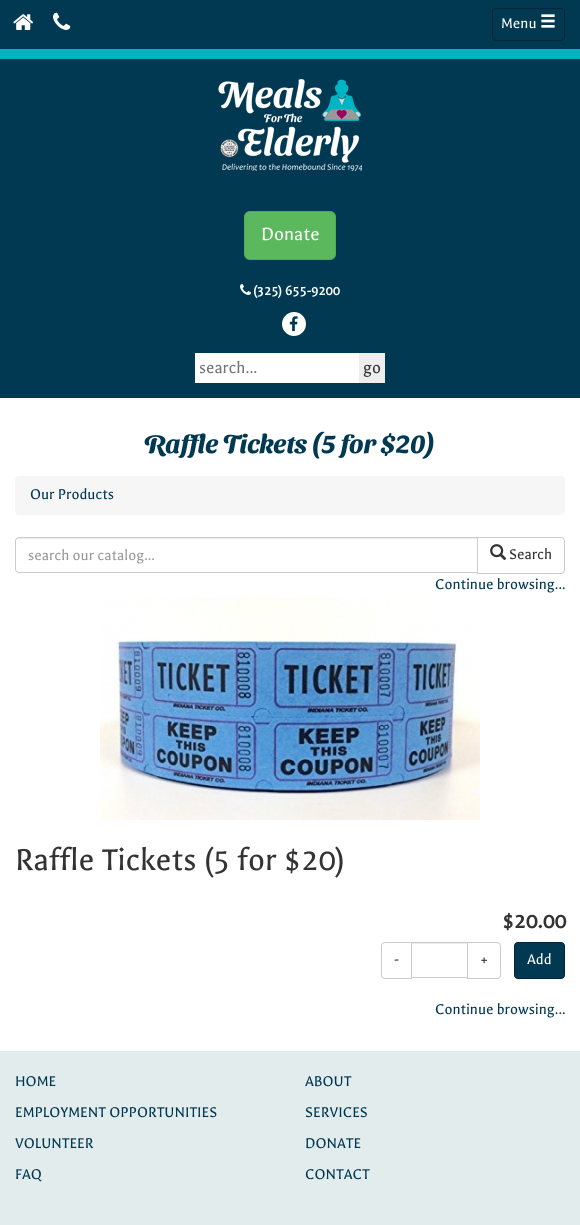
#include <cairo.h>
#include <math.h>
#include <stddef.h>


static void round_rect(cairo_t *cr, double x, double y, double w, double h, double r) {
    cairo_new_sub_path(cr);
    cairo_arc(cr, x + w - r, y + h - r, r, 0, M_PI / 2);
    cairo_arc(cr, x + r, y + h - r, r, M_PI / 2, M_PI);
    cairo_arc(cr, x + r, y + r, r, M_PI, 1.5 * M_PI);
    cairo_arc(cr, x + w - r, y + r, r, 1.5 * M_PI, 2 * M_PI);
    cairo_close_path(cr);
}

static void picture(cairo_t *cr, const char *path, double x, double y, double w, double h) {
    cairo_surface_t *image = cairo_image_surface_create_from_png(path);
    cairo_save(cr);
    cairo_set_source_surface(cr, image, x, y);
    cairo_rectangle(cr, x, y, w, h);
    cairo_fill(cr);
    cairo_restore(cr);
    cairo_surface_destroy(image);
}

int main(void) {
    cairo_surface_t *surface = cairo_image_surface_create(CAIRO_FORMAT_RGB24, 580, 1225);
    cairo_t *cr = cairo_create(surface);
    cairo_font_options_t *options = cairo_font_options_create();
    cairo_font_options_set_hint_metrics(options, CAIRO_HINT_METRICS_OFF);
    cairo_font_options_set_hint_style(options, CAIRO_HINT_STYLE_NONE);
    cairo_set_font_options(cr, options);
    cairo_set_miter_limit(cr, 4);
    cairo_set_source_rgb(cr, 1, 1, 1);
    cairo_paint(cr);
    cairo_set_source_rgb(cr, 0.004, 0.224, 0.322);
    cairo_rectangle(cr, 0, 0, 580, 49);
    cairo_fill(cr);
    picture(cr, "img1.png", 13, 14, 21, 16);
    picture(cr, "img2.png", 53, 12, 18, 18);
    round_rect(cr, 492.5, 8.5, 72, 32, 3.5);
    cairo_set_source_rgb(cr, 0.004, 0.153, 0.224);
    cairo_set_line_width(cr, 1);
    cairo_stroke(cr);
    cairo_select_font_face(cr, "Galdeano", CAIRO_FONT_SLANT_NORMAL, CAIRO_FONT_WEIGHT_NORMAL);
    cairo_set_font_size(cr, 16);
    cairo_set_source_rgb(cr, 1, 1, 1);
    cairo_move_to(cr, 501, 28);
    cairo_show_text(cr, "Menu");
    picture(cr, "img3.png", 541, 14, 14, 14);
    cairo_set_source_rgb(cr, 0.004, 0.224, 0.322);
    cairo_rectangle(cr, 0, 59, 580, 339);
    cairo_fill(cr);
    cairo_set_source_rgb(cr, 0, 0.706, 0.761);
    cairo_rectangle(cr, 0, 49, 580, 10);
    cairo_fill(cr);
    picture(cr, "img4.png", 218, 79, 144, 92);
    cairo_set_source_rgb(cr, 0.361, 0.722, 0.361);
    round_rect(cr, 244.5, 211.5, 91, 48, 5.5);
    cairo_fill_preserve(cr);
    cairo_set_source_rgb(cr, 0.298, 0.682, 0.298);
    cairo_stroke(cr);
    cairo_set_font_size(cr, 20);
    cairo_set_source_rgb(cr, 1, 1, 1);
    cairo_move_to(cr, 261, 240);
    cairo_show_text(cr, "Donate");
    picture(cr, "img5.png", 240, 284, 11, 11);
    cairo_select_font_face(cr, "Galdeano", CAIRO_FONT_SLANT_NORMAL, CAIRO_FONT_WEIGHT_BOLD);
    cairo_set_font_size(cr, 14);
    cairo_move_to(cr, 253, 295);
    cairo_show_text(cr, "(325) 655-9200");
    cairo_new_path(cr);
    cairo_arc(cr, 294, 324, 12, 0, 2 * M_PI);
    cairo_fill(cr);
    picture(cr, "img6.png", 289, 316, 9, 16);
    cairo_rectangle(cr, 195, 353, 164, 30);
    cairo_fill(cr);
    cairo_select_font_face(cr, "Galdeano", CAIRO_FONT_SLANT_NORMAL, CAIRO_FONT_WEIGHT_NORMAL);
    cairo_set_font_size(cr, 18);
    cairo_set_source_rgb(cr, 0.459, 0.459, 0.459);
    cairo_move_to(cr, 199, 373);
    cairo_show_text(cr, "search...");
    cairo_set_source_rgb(cr, 0.933, 0.933, 0.933);
    cairo_rectangle(cr, 359, 353, 26, 30);
    cairo_fill(cr);
    cairo_set_source_rgb(cr, 0.2, 0.2, 0.2);
    cairo_move_to(cr, 363, 373);
    cairo_show_text(cr, "go");
    cairo_select_font_face(cr, "Sansita Swashed", CAIRO_FONT_SLANT_NORMAL, CAIRO_FONT_WEIGHT_BOLD);
    cairo_set_font_size(cr, 26);
    cairo_set_source_rgb(cr, 0.004, 0.224, 0.322);
    cairo_move_to(cr, 144, 453);
    cairo_show_text(cr, "Raffle Tickets (5 for $20)");
    cairo_set_source_rgb(cr, 0.961, 0.961, 0.961);
    round_rect(cr, 15, 476, 550, 39, 4);
    cairo_fill(cr);
    cairo_select_font_face(cr, "Galdeano", CAIRO_FONT_SLANT_NORMAL, CAIRO_FONT_WEIGHT_NORMAL);
    cairo_set_font_size(cr, 16);
    cairo_set_source_rgb(cr, 0.004, 0.224, 0.322);
    cairo_move_to(cr, 30, 499);
    cairo_show_text(cr, "Our Products");
    cairo_set_source_rgb(cr, 0.925, 0.925, 0.925);
    cairo_new_path(cr);
    cairo_move_to(cr, 19, 539);
    cairo_line_to(cr, 477, 539);
    cairo_line_to(cr, 477, 538);
    cairo_line_to(cr, 19, 538);
    cairo_curve_to(cr, 17, 538, 16, 540, 16, 542);
    cairo_curve_to(cr, 16, 540, 17, 539, 19, 539);
    cairo_close_path(cr);
    cairo_fill(cr);
    cairo_new_path(cr);
    cairo_move_to(cr, 19, 537.5);
    cairo_line_to(cr, 477.5, 537.5);
    cairo_line_to(cr, 477.5, 572.5);
    cairo_line_to(cr, 19, 572.5);
    cairo_curve_to(cr, 17, 572.5, 15.5, 571, 15.5, 569);
    cairo_line_to(cr, 15.5, 541);
    cairo_curve_to(cr, 15.5, 539, 17, 537.5, 19, 537.5);
    cairo_close_path(cr);
    cairo_set_source_rgb(cr, 0.8, 0.8, 0.8);
    cairo_stroke(cr);
    cairo_set_source_rgb(cr, 0.6, 0.6, 0.6);
    cairo_move_to(cr, 28, 560);
    cairo_show_text(cr, "search our catalog...");
    cairo_set_source_rgb(cr, 1, 1, 1);
    cairo_new_path(cr);
    cairo_move_to(cr, 477.5, 537.5);
    cairo_line_to(cr, 561, 537.5);
    cairo_curve_to(cr, 563, 537.5, 564.5, 539, 564.5, 541);
    cairo_line_to(cr, 564.5, 570);
    cairo_curve_to(cr, 564.5, 572, 563, 573.5, 561, 573.5);
    cairo_line_to(cr, 477.5, 573.5);
    cairo_close_path(cr);
    cairo_fill_preserve(cr);
    cairo_set_source_rgb(cr, 0.8, 0.8, 0.8);
    cairo_stroke(cr);
    picture(cr, "img7.png", 490, 544, 17, 17);
    cairo_set_source_rgb(cr, 0.2, 0.2, 0.2);
    cairo_move_to(cr, 509, 559);
    cairo_show_text(cr, "Search");
    cairo_set_source_rgb(cr, 0.004, 0.224, 0.322);
    cairo_move_to(cr, 435, 589);
    cairo_show_text(cr, "Continue browsing...");
    picture(cr, "img8.png", 100, 597, 380, 223);
    cairo_set_font_size(cr, 34);
    cairo_set_source_rgb(cr, 0.2, 0.2, 0.2);
    cairo_move_to(cr, 15, 870);
    cairo_show_text(cr, "Raffle Tickets (5 for $20)");
    cairo_select_font_face(cr, "Galdeano", CAIRO_FONT_SLANT_NORMAL, CAIRO_FONT_WEIGHT_BOLD);
    cairo_set_font_size(cr, 23);
    cairo_move_to(cr, 502, 928);
    cairo_show_text(cr, "$20.00");
    cairo_new_path(cr);
    cairo_move_to(cr, 385, 942.5);
    cairo_line_to(cr, 411.5, 942.5);
    cairo_line_to(cr, 411.5, 978.5);
    cairo_line_to(cr, 385, 978.5);
    cairo_curve_to(cr, 383, 978.5, 381.5, 977, 381.5, 975);
    cairo_line_to(cr, 381.5, 946);
    cairo_curve_to(cr, 381.5, 944, 383, 942.5, 385, 942.5);
    cairo_close_path(cr);
    cairo_set_source_rgb(cr, 0.8, 0.8, 0.8);
    cairo_stroke(cr);
    cairo_select_font_face(cr, "Galdeano", CAIRO_FONT_SLANT_NORMAL, CAIRO_FONT_WEIGHT_NORMAL);
    cairo_set_font_size(cr, 16);
    cairo_set_source_rgb(cr, 0.2, 0.2, 0.2);
    cairo_move_to(cr, 394, 964);
    cairo_show_text(cr, "-");
    cairo_set_source_rgb(cr, 0.925, 0.925, 0.925);
    cairo_rectangle(cr, 412, 943, 55, 1);
    cairo_fill(cr);
    cairo_rectangle(cr, 411.5, 942.5, 56, 35);
    cairo_set_source_rgb(cr, 0.8, 0.8, 0.8);
    cairo_stroke(cr);
    cairo_set_source_rgb(cr, 1, 1, 1);
    cairo_new_path(cr);
    cairo_move_to(cr, 467.5, 942.5);
    cairo_line_to(cr, 497, 942.5);
    cairo_curve_to(cr, 499, 942.5, 500.5, 944, 500.5, 946);
    cairo_line_to(cr, 500.5, 975);
    cairo_curve_to(cr, 500.5, 977, 499, 978.5, 497, 978.5);
    cairo_line_to(cr, 467.5, 978.5);
    cairo_close_path(cr);
    cairo_fill_preserve(cr);
    cairo_set_source_rgb(cr, 0.8, 0.8, 0.8);
    cairo_stroke(cr);
    cairo_set_source_rgb(cr, 0.2, 0.2, 0.2);
    cairo_move_to(cr, 480, 964);
    cairo_show_text(cr, "+");
    cairo_set_source_rgb(cr, 0.004, 0.224, 0.322);
    round_rect(cr, 514.5, 942.5, 50, 36, 3.5);
    cairo_fill_preserve(cr);
    cairo_set_source_rgb(cr, 0.004, 0.153, 0.224);
    cairo_stroke(cr);
    cairo_set_source_rgb(cr, 1, 1, 1);
    cairo_move_to(cr, 527, 964);
    cairo_show_text(cr, "Add");
    cairo_set_source_rgb(cr, 0.004, 0.224, 0.322);
    cairo_move_to(cr, 435, 1014);
    cairo_show_text(cr, "Continue browsing...");
    cairo_set_source_rgb(cr, 0.89, 0.922, 0.929);
    cairo_rectangle(cr, 0, 1051, 580, 174);
    cairo_fill(cr);
    cairo_set_source_rgb(cr, 0.004, 0.224, 0.322);
    cairo_move_to(cr, 15, 1086);
    cairo_show_text(cr, "HOME");
    cairo_move_to(cr, 305, 1086);
    cairo_show_text(cr, "ABOUT");
    cairo_move_to(cr, 15, 1117);
    cairo_show_text(cr, "EMPLOYMENT OPPORTUNITIES");
    cairo_move_to(cr, 305, 1117);
    cairo_show_text(cr, "SERVICES");
    cairo_move_to(cr, 15, 1148);
    cairo_show_text(cr, "VOLUNTEER");
    cairo_move_to(cr, 305, 1148);
    cairo_show_text(cr, "DONATE");
    cairo_move_to(cr, 15, 1179);
    cairo_show_text(cr, "FAQ");
    cairo_move_to(cr, 305, 1179);
    cairo_show_text(cr, "CONTACT");
    cairo_surface_write_to_png(surface, "page.png");
    cairo_font_options_destroy(options);
    cairo_destroy(cr);
    cairo_surface_destroy(surface);
    return 0;
}
